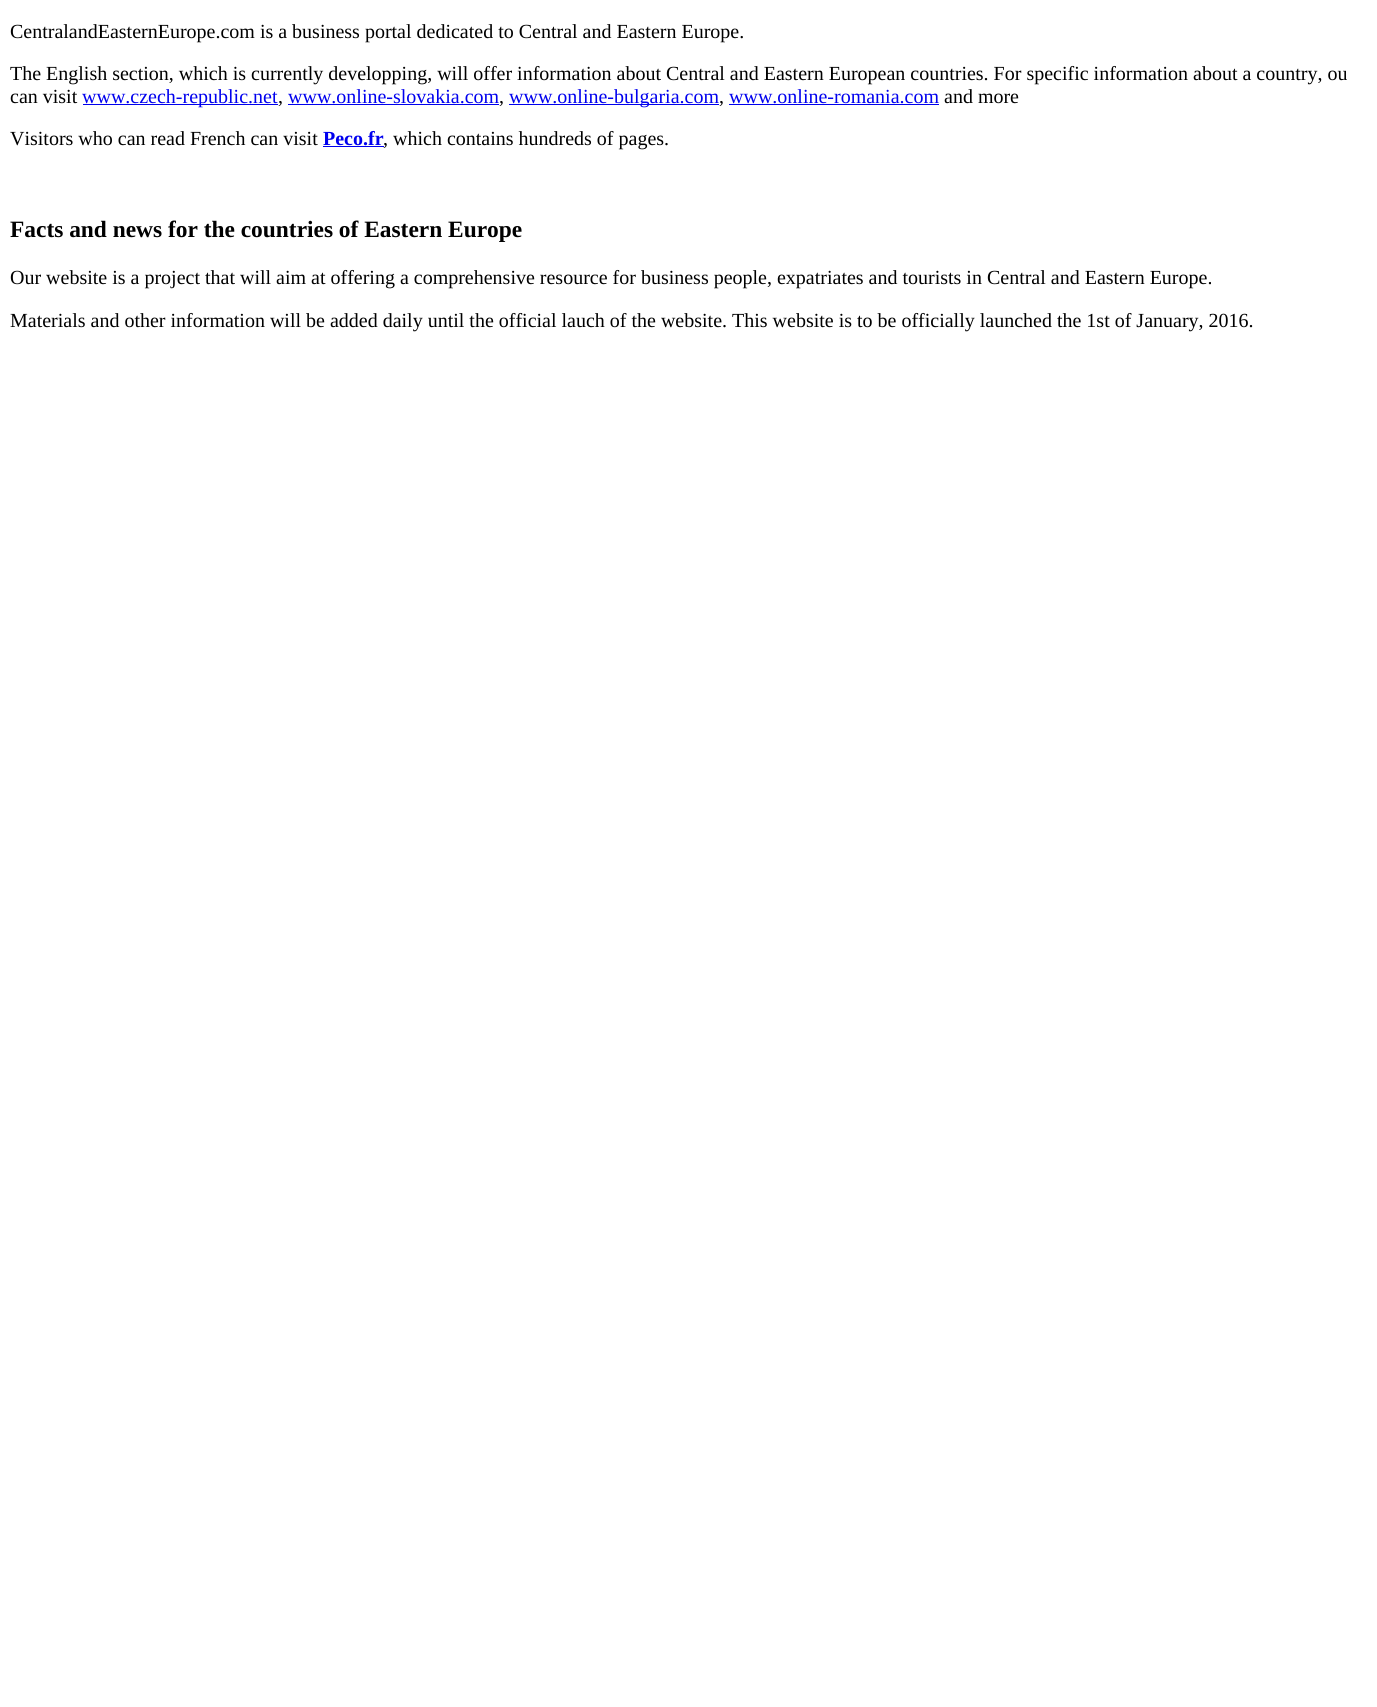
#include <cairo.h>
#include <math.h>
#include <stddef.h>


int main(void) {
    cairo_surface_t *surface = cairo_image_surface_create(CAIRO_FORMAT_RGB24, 1377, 1707);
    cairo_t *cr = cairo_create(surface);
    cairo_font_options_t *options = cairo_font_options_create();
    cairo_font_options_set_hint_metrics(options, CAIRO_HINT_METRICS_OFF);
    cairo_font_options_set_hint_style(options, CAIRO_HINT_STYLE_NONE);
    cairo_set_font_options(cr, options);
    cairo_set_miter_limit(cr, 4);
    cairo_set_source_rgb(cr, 1, 1, 1);
    cairo_paint(cr);
    cairo_select_font_face(cr, "Liberation Serif", CAIRO_FONT_SLANT_NORMAL, CAIRO_FONT_WEIGHT_NORMAL);
    cairo_set_font_size(cr, 20);
    cairo_set_source_rgb(cr, 0, 0, 0);
    cairo_move_to(cr, 10, 38);
    cairo_show_text(cr, "CentralandEasternEurope.com is a business portal dedicated to Central and Eastern Europe.");
    cairo_move_to(cr, 10, 80);
    cairo_show_text(cr, "The English section, which is currently developping, will offer information about Central and Eastern European countries. For specific information about a country, ou");
    cairo_move_to(cr, 10, 103);
    cairo_show_text(cr, "can visit");
    cairo_set_source_rgb(cr, 0, 0, 0.933);
    cairo_rectangle(cr, 83, 104, 195, 1);
    cairo_fill(cr);
    cairo_move_to(cr, 82, 103);
    cairo_show_text(cr, "www.czech-republic.net");
    cairo_set_source_rgb(cr, 0, 0, 0);
    cairo_move_to(cr, 278, 103);
    cairo_show_text(cr, ",");
    cairo_set_source_rgb(cr, 0, 0, 0.933);
    cairo_move_to(cr, 288, 103);
    cairo_show_text(cr, "www.online-slovakia.com");
    cairo_rectangle(cr, 288, 104, 211, 1);
    cairo_fill(cr);
    cairo_set_source_rgb(cr, 0, 0, 0);
    cairo_move_to(cr, 499, 103);
    cairo_show_text(cr, ",");
    cairo_set_source_rgb(cr, 0, 0, 0.933);
    cairo_rectangle(cr, 509, 104, 210, 1);
    cairo_fill(cr);
    cairo_move_to(cr, 509, 103);
    cairo_show_text(cr, "www.online-bulgaria.com");
    cairo_set_source_rgb(cr, 0, 0, 0);
    cairo_move_to(cr, 719, 103);
    cairo_show_text(cr, ",");
    cairo_set_source_rgb(cr, 0, 0, 0.933);
    cairo_move_to(cr, 729, 103);
    cairo_show_text(cr, "www.online-romania.com");
    cairo_rectangle(cr, 729, 104, 210, 1);
    cairo_fill(cr);
    cairo_set_source_rgb(cr, 0, 0, 0);
    cairo_move_to(cr, 944, 103);
    cairo_show_text(cr, "and more");
    cairo_move_to(cr, 10, 145);
    cairo_show_text(cr, "Visitors who can read French can visit");
    cairo_select_font_face(cr, "Liberation Serif", CAIRO_FONT_SLANT_NORMAL, CAIRO_FONT_WEIGHT_BOLD);
    cairo_set_source_rgb(cr, 0, 0, 0.933);
    cairo_move_to(cr, 323, 145);
    cairo_show_text(cr, "Peco.fr");
    cairo_rectangle(cr, 323, 146, 61, 1);
    cairo_fill(cr);
    cairo_select_font_face(cr, "Liberation Serif", CAIRO_FONT_SLANT_NORMAL, CAIRO_FONT_WEIGHT_NORMAL);
    cairo_set_source_rgb(cr, 0, 0, 0);
    cairo_move_to(cr, 383, 145);
    cairo_show_text(cr, ", which contains hundreds of pages.");
    cairo_select_font_face(cr, "Liberation Serif", CAIRO_FONT_SLANT_NORMAL, CAIRO_FONT_WEIGHT_BOLD);
    cairo_set_font_size(cr, 23.4);
    cairo_move_to(cr, 10, 237);
    cairo_show_text(cr, "Facts and news for the countries of Eastern Europe");
    cairo_select_font_face(cr, "Liberation Serif", CAIRO_FONT_SLANT_NORMAL, CAIRO_FONT_WEIGHT_NORMAL);
    cairo_set_font_size(cr, 20);
    cairo_move_to(cr, 10, 284);
    cairo_show_text(cr, "Our website is a project that will aim at offering a comprehensive resource for business people, expatriates and tourists in Central and Eastern Europe.");
    cairo_move_to(cr, 10, 327);
    cairo_show_text(cr, "Materials and other information will be added daily until the official lauch of the website. This website is to be officially launched the 1st of January, 2016.");
    cairo_surface_write_to_png(surface, "page.png");
    cairo_font_options_destroy(options);
    cairo_destroy(cr);
    cairo_surface_destroy(surface);
    return 0;
}
